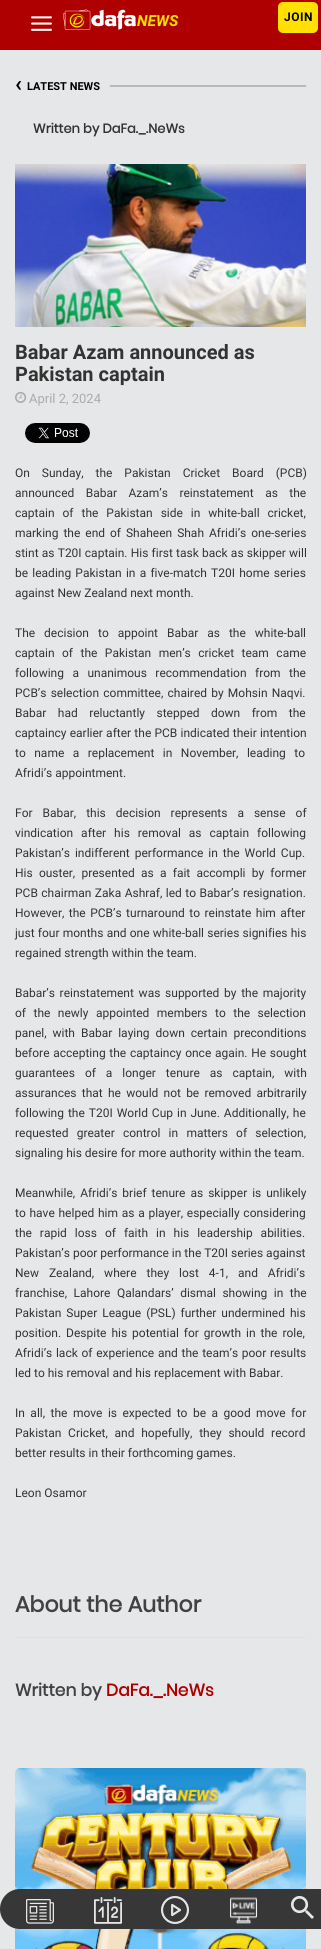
#include <cairo.h>
#include <math.h>
#include <stddef.h>


static void spaced_text(cairo_t *cr, double x, double y, const char *s, double letter, double word) {
    cairo_move_to(cr, x, y);
    while (*s) {
        char ch[5] = {0};
        int n = 0;
        do ch[n++] = *s++; while ((*s & 0xC0) == 0x80);
        cairo_show_text(cr, ch);
        cairo_rel_move_to(cr, letter + word * (*ch == ' '), 0);
    }
}

static void round_rect(cairo_t *cr, double x, double y, double w, double h, double r) {
    cairo_new_sub_path(cr);
    cairo_arc(cr, x + w - r, y + h - r, r, 0, M_PI / 2);
    cairo_arc(cr, x + r, y + h - r, r, M_PI / 2, M_PI);
    cairo_arc(cr, x + r, y + r, r, M_PI, 1.5 * M_PI);
    cairo_arc(cr, x + w - r, y + r, r, 1.5 * M_PI, 2 * M_PI);
    cairo_close_path(cr);
}

static void picture(cairo_t *cr, const char *path, double x, double y, double w, double h) {
    cairo_surface_t *image = cairo_image_surface_create_from_png(path);
    cairo_save(cr);
    cairo_set_source_surface(cr, image, x, y);
    cairo_rectangle(cr, x, y, w, h);
    cairo_fill(cr);
    cairo_restore(cr);
    cairo_surface_destroy(image);
}

int main(void) {
    cairo_surface_t *surface = cairo_image_surface_create(CAIRO_FORMAT_RGB24, 321, 1949);
    cairo_t *cr = cairo_create(surface);
    cairo_font_options_t *options = cairo_font_options_create();
    cairo_font_options_set_hint_metrics(options, CAIRO_HINT_METRICS_OFF);
    cairo_font_options_set_hint_style(options, CAIRO_HINT_STYLE_NONE);
    cairo_set_font_options(cr, options);
    cairo_set_miter_limit(cr, 4);
    cairo_set_source_rgb(cr, 0.902, 0.906, 0.91);
    cairo_paint(cr);
    cairo_set_source_rgb(cr, 0.686, 0, 0);
    cairo_rectangle(cr, 0, 0, 321, 50);
    cairo_fill(cr);
    picture(cr, "img1.png", 31, 16, 21, 15);
    picture(cr, "img2.png", 63, 9, 116, 21);
    cairo_set_source_rgb(cr, 1, 0.878, 0);
    round_rect(cr, 278, 2, 40, 31, 5);
    cairo_fill(cr);
    cairo_select_font_face(cr, "Roboto", CAIRO_FONT_SLANT_NORMAL, CAIRO_FONT_WEIGHT_BOLD);
    cairo_set_font_size(cr, 12);
    cairo_set_source_rgb(cr, 0, 0, 0);
    spaced_text(cr, 284, 21, "JOIN", 0.5, 0);
    picture(cr, "img11.png", 15, 1768, 291, 181);
    cairo_set_source_rgb(cr, 0.216, 0.216, 0.216);
    round_rect(cr, 0, 1889, 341, 40, 20);
    cairo_fill(cr);
    picture(cr, "img3.png", 26, 1899, 28, 25);
    picture(cr, "img4.png", 94, 1897, 28, 27);
    picture(cr, "img5.png", 161, 1896, 28, 28);
    picture(cr, "img6.png", 230, 1897, 28, 27);
    picture(cr, "img7.png", 291, 1896, 23, 23);
    cairo_set_font_size(cr, 22);
    cairo_set_source_rgb(cr, 0, 0, 0);
    cairo_move_to(cr, 15, 91);
    cairo_show_text(cr, "‹");
    cairo_set_font_size(cr, 11);
    cairo_move_to(cr, 27, 90);
    cairo_show_text(cr, "LATEST NEWS");
    cairo_set_source_rgb(cr, 0.725, 0.725, 0.729);
    cairo_rectangle(cr, 110, 85, 196, 2);
    cairo_fill(cr);
    cairo_select_font_face(cr, "Poppins", CAIRO_FONT_SLANT_NORMAL, CAIRO_FONT_WEIGHT_BOLD);
    cairo_set_font_size(cr, 13);
    cairo_set_source_rgb(cr, 0.2, 0.2, 0.2);
    cairo_move_to(cr, 33, 133);
    cairo_show_text(cr, "Written by DaFa._.NeWs");
    picture(cr, "img8.png", 15, 164, 291, 163);
    cairo_select_font_face(cr, "Roboto", CAIRO_FONT_SLANT_NORMAL, CAIRO_FONT_WEIGHT_BOLD);
    cairo_set_font_size(cr, 20);
    cairo_move_to(cr, 15, 359);
    cairo_show_text(cr, "Babar Azam announced as");
    cairo_move_to(cr, 15, 381);
    cairo_show_text(cr, "Pakistan captain");
    picture(cr, "img9.png", 15, 391, 12, 12);
    cairo_select_font_face(cr, "Roboto", CAIRO_FONT_SLANT_NORMAL, CAIRO_FONT_WEIGHT_NORMAL);
    cairo_set_font_size(cr, 13);
    cairo_set_source_rgb(cr, 0.671, 0.671, 0.671);
    cairo_move_to(cr, 29, 403);
    cairo_show_text(cr, "April 2, 2024");
    picture(cr, "img10.png", 25, 423, 65, 20);
    cairo_set_font_size(cr, 12);
    cairo_set_source_rgb(cr, 0.2, 0.2, 0.2);
    spaced_text(cr, 15, 477, "On Sunday, the Pakistan Cricket Board (PCB)", 0, 9);
    spaced_text(cr, 15, 497, "announced Babar Azam’s reinstatement as the", 0, 8.5);
    spaced_text(cr, 15, 517, "captain of the Pakistan side in white-ball cricket,", 0, 5);
    spaced_text(cr, 15, 537, "marking the end of Shaheen Shah Afridi’s one-series", 0, 2);
    spaced_text(cr, 15, 557, "stint as T20I captain. His first task back as skipper will", 0, 0.25);
    spaced_text(cr, 15, 577, "be leading Pakistan in a five-match T20I home series", 0, 1.25);
    cairo_move_to(cr, 15, 597);
    cairo_show_text(cr, "against New Zealand next month.");
    spaced_text(cr, 15, 637, "The decision to appoint Babar as the white-ball", 0, 6);
    spaced_text(cr, 15, 657, "captain of the Pakistan men’s cricket team came", 0, 4.5);
    spaced_text(cr, 15, 677, "following a unanimous recommendation from the", 0, 5.5);
    spaced_text(cr, 15, 697, "PCB’s selection committee, chaired by Mohsin Naqvi.", 0, 1.25);
    spaced_text(cr, 15, 717, "Babar had reluctantly stepped down from the", 0, 8.5);
    spaced_text(cr, 15, 737, "captaincy earlier after the PCB indicated their intention", 0, 0.25);
    spaced_text(cr, 15, 757, "to name a replacement in November, leading to", 0, 5.5);
    cairo_move_to(cr, 15, 777);
    cairo_show_text(cr, "Afridi’s appointment.");
    spaced_text(cr, 15, 817, "For Babar, this decision represents a sense of", 0, 7);
    spaced_text(cr, 15, 837, "vindication after his removal as captain following", 0, 5);
    spaced_text(cr, 15, 857, "Pakistan’s indifferent performance in the World Cup.", 0, 2);
    spaced_text(cr, 15, 877, "His ouster, presented as a fait accompli by former", 0, 3.25);
    spaced_text(cr, 15, 897, "PCB chairman Zaka Ashraf, led to Babar’s resignation.", 0, 0.5);
    spaced_text(cr, 15, 917, "However, the PCB’s turnaround to reinstate him after", 0, 1.5);
    spaced_text(cr, 15, 937, "just four months and one white-ball series signifies his", 0, 0.25);
    cairo_move_to(cr, 15, 957);
    cairo_show_text(cr, "regained strength within the team.");
    spaced_text(cr, 15, 997, "Babar’s reinstatement was supported by the majority", 0, 1.75);
    spaced_text(cr, 15, 1017, "of the newly appointed members to the selection", 0, 4.5);
    spaced_text(cr, 15, 1037, "panel, with Babar laying down certain preconditions", 0, 3);
    spaced_text(cr, 15, 1057, "before accepting the captaincy once again. He sought", 0, 0.75);
    spaced_text(cr, 15, 1077, "guarantees of a longer tenure as captain, with", 0, 7);
    spaced_text(cr, 15, 1097, "assurances that he would not be removed arbitrarily", 0, 2.25);
    spaced_text(cr, 15, 1117, "following the T20I World Cup in June. Additionally, he", 0, 1);
    spaced_text(cr, 15, 1137, "requested greater control in matters of selection,", 0, 5.25);
    cairo_move_to(cr, 15, 1157);
    cairo_show_text(cr, "signaling his desire for more authority within the team.");
    spaced_text(cr, 15, 1197, "Meanwhile, Afridi’s brief tenure as skipper is unlikely", 0, 2);
    spaced_text(cr, 15, 1217, "to have helped him as a player, especially considering", 0, 0.75);
    spaced_text(cr, 15, 1237, "the rapid loss of faith in his leadership abilities.", 0, 5);
    cairo_move_to(cr, 15, 1257);
    cairo_show_text(cr, "Pakistan’s poor performance in the T20I series against");
    spaced_text(cr, 15, 1277, "New Zealand, where they lost 4-1, and Afridi’s", 0, 7);
    spaced_text(cr, 15, 1297, "franchise, Lahore Qalandars’ dismal showing in the", 0, 3.5);
    spaced_text(cr, 15, 1317, "Pakistan Super League (PSL) further undermined his", 0, 2);
    spaced_text(cr, 15, 1337, "position. Despite his potential for growth in the role,", 0, 2);
    spaced_text(cr, 15, 1357, "Afridi’s lack of experience and the team’s poor results", 0, 0.75);
    cairo_move_to(cr, 15, 1377);
    cairo_show_text(cr, "led to his removal and his replacement with Babar.");
    spaced_text(cr, 15, 1417, "In all, the move is expected to be a good move for", 0, 2.5);
    spaced_text(cr, 15, 1437, "Pakistan Cricket, and hopefully, they should record", 0, 3.75);
    cairo_move_to(cr, 15, 1457);
    cairo_show_text(cr, "better results in their forthcoming games.");
    cairo_move_to(cr, 15, 1497);
    cairo_show_text(cr, "Leon Osamor");
    cairo_select_font_face(cr, "Poppins", CAIRO_FONT_SLANT_NORMAL, CAIRO_FONT_WEIGHT_BOLD);
    cairo_set_font_size(cr, 22);
    cairo_set_source_rgb(cr, 0.255, 0.251, 0.259);
    cairo_move_to(cr, 15, 1612);
    cairo_show_text(cr, "About the Author");
    cairo_set_source_rgb(cr, 0.878, 0.878, 0.878);
    cairo_rectangle(cr, 15, 1637, 291, 1);
    cairo_fill(cr);
    cairo_set_font_size(cr, 17);
    cairo_set_source_rgb(cr, 0.255, 0.251, 0.259);
    cairo_move_to(cr, 15, 1696);
    cairo_show_text(cr, "Written by");
    cairo_set_source_rgb(cr, 0.686, 0, 0);
    cairo_move_to(cr, 106, 1696);
    cairo_show_text(cr, "DaFa._.NeWs");
    cairo_surface_write_to_png(surface, "page.png");
    cairo_font_options_destroy(options);
    cairo_destroy(cr);
    cairo_surface_destroy(surface);
    return 0;
}
